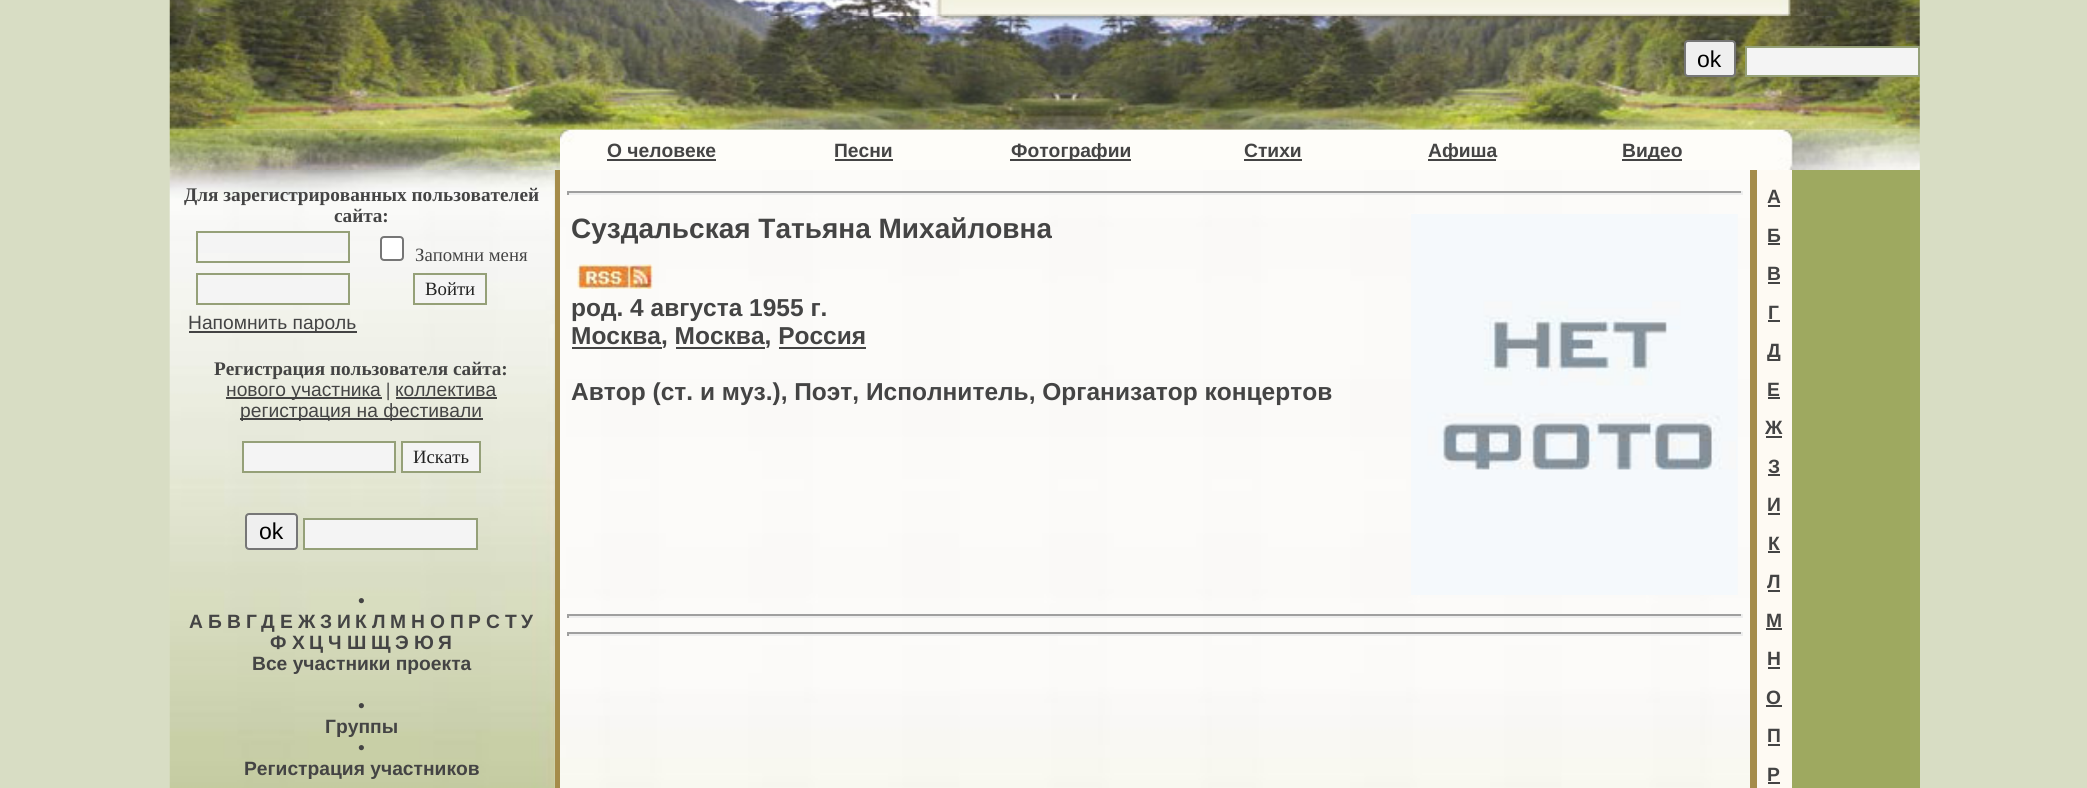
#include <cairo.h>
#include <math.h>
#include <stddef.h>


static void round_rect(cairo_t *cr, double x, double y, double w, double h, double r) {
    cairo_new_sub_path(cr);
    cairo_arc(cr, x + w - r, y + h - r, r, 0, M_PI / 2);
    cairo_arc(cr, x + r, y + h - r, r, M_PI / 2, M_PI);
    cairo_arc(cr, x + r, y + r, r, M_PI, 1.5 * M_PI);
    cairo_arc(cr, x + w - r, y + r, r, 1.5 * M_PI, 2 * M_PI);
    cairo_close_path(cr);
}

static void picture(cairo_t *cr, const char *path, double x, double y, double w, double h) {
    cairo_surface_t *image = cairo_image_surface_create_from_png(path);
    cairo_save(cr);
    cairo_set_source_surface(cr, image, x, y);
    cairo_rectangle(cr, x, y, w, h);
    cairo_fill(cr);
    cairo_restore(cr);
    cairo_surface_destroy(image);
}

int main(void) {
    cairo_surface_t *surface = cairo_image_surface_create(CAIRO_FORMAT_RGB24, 2087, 788);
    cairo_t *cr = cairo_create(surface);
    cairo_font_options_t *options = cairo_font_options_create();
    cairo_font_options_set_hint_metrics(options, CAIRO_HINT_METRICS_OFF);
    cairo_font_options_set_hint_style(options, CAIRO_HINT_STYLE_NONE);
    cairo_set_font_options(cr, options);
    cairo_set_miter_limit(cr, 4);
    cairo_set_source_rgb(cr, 0.847, 0.867, 0.769);
    cairo_paint(cr);
    picture(cr, "img1.png", 169, 0, 771, 16);
    picture(cr, "img2.png", 940, 0, 851, 16);
    picture(cr, "img3.png", 1790, 0, 130, 16);
    picture(cr, "img4.png", 169, 16, 1751, 114);
    cairo_set_source_rgb(cr, 0.937, 0.937, 0.937);
    round_rect(cr, 1685, 41, 50, 35, 3);
    cairo_fill_preserve(cr);
    cairo_set_source_rgb(cr, 0.463, 0.463, 0.463);
    cairo_stroke(cr);
    cairo_select_font_face(cr, "Liberation Sans", CAIRO_FONT_SLANT_NORMAL, CAIRO_FONT_WEIGHT_NORMAL);
    cairo_set_font_size(cr, 23);
    cairo_set_source_rgb(cr, 0, 0, 0);
    cairo_move_to(cr, 1697, 67);
    cairo_show_text(cr, "ok");
    cairo_set_source_rgb(cr, 0.957, 0.957, 0.957);
    cairo_rectangle(cr, 1746, 47, 173, 29);
    cairo_fill_preserve(cr);
    cairo_set_source_rgb(cr, 0.584, 0.627, 0.471);
    cairo_stroke(cr);
    picture(cr, "img5.png", 169, 129, 391, 41);
    picture(cr, "img6.png", 560, 129, 1190, 41);
    cairo_select_font_face(cr, "Liberation Sans", CAIRO_FONT_SLANT_NORMAL, CAIRO_FONT_WEIGHT_BOLD);
    cairo_set_font_size(cr, 19.25);
    cairo_set_source_rgb(cr, 0.267, 0.267, 0.267);
    cairo_move_to(cr, 607, 157);
    cairo_show_text(cr, "О человеке");
    cairo_rectangle(cr, 607, 159, 109, 2);
    cairo_fill(cr);
    cairo_move_to(cr, 834, 157);
    cairo_show_text(cr, "Песни");
    cairo_rectangle(cr, 835, 159, 58, 2);
    cairo_fill(cr);
    cairo_rectangle(cr, 1010, 159, 121, 2);
    cairo_fill(cr);
    cairo_move_to(cr, 1011, 157);
    cairo_show_text(cr, "Фотографии");
    cairo_move_to(cr, 1244, 157);
    cairo_show_text(cr, "Стихи");
    cairo_rectangle(cr, 1244, 159, 58, 2);
    cairo_fill(cr);
    cairo_rectangle(cr, 1428, 159, 68, 2);
    cairo_fill(cr);
    cairo_move_to(cr, 1428, 157);
    cairo_show_text(cr, "Афиша");
    cairo_rectangle(cr, 1622, 159, 60, 2);
    cairo_fill(cr);
    cairo_move_to(cr, 1622, 157);
    cairo_show_text(cr, "Видео");
    picture(cr, "img7.png", 1750, 129, 170, 41);
    picture(cr, "img8.png", 169, 170, 386, 618);
    cairo_select_font_face(cr, "Liberation Serif", CAIRO_FONT_SLANT_NORMAL, CAIRO_FONT_WEIGHT_BOLD);
    cairo_move_to(cr, 184, 201);
    cairo_show_text(cr, "Для зарегистрированных пользователей");
    cairo_move_to(cr, 334, 222);
    cairo_show_text(cr, "сайта:");
    cairo_set_source_rgb(cr, 0.957, 0.957, 0.957);
    cairo_rectangle(cr, 198, 233, 150, 20);
    cairo_fill(cr);
    cairo_rectangle(cr, 197, 232, 152, 30);
    cairo_set_source_rgb(cr, 0.584, 0.627, 0.471);
    cairo_stroke(cr);
    cairo_set_source_rgb(cr, 1, 1, 1);
    round_rect(cr, 381, 237, 22, 23, 3);
    cairo_fill_preserve(cr);
    cairo_set_source_rgb(cr, 0.463, 0.463, 0.463);
    cairo_stroke(cr);
    cairo_select_font_face(cr, "Liberation Serif", CAIRO_FONT_SLANT_NORMAL, CAIRO_FONT_WEIGHT_NORMAL);
    cairo_set_font_size(cr, 18.75);
    cairo_set_source_rgb(cr, 0.267, 0.267, 0.267);
    cairo_move_to(cr, 415, 261);
    cairo_show_text(cr, "Запомни меня");
    cairo_set_source_rgb(cr, 0.957, 0.957, 0.957);
    cairo_rectangle(cr, 198, 279, 150, 24);
    cairo_fill(cr);
    cairo_rectangle(cr, 197, 274, 152, 30);
    cairo_set_source_rgb(cr, 0.584, 0.627, 0.471);
    cairo_stroke(cr);
    cairo_set_source_rgb(cr, 0.957, 0.957, 0.957);
    cairo_rectangle(cr, 415, 279, 70, 24);
    cairo_fill(cr);
    cairo_rectangle(cr, 414, 274, 72, 30);
    cairo_set_source_rgb(cr, 0.584, 0.627, 0.471);
    cairo_stroke(cr);
    cairo_set_source_rgb(cr, 0.133, 0.133, 0.133);
    cairo_move_to(cr, 425, 295);
    cairo_show_text(cr, "Войти");
    cairo_set_source_rgb(cr, 0.267, 0.267, 0.267);
    cairo_rectangle(cr, 189, 331, 168, 2);
    cairo_fill(cr);
    cairo_select_font_face(cr, "Liberation Sans", CAIRO_FONT_SLANT_NORMAL, CAIRO_FONT_WEIGHT_NORMAL);
    cairo_set_font_size(cr, 19.25);
    cairo_move_to(cr, 188, 329);
    cairo_show_text(cr, "Напомнить пароль");
    cairo_select_font_face(cr, "Liberation Serif", CAIRO_FONT_SLANT_NORMAL, CAIRO_FONT_WEIGHT_BOLD);
    cairo_move_to(cr, 214, 375);
    cairo_show_text(cr, "Регистрация пользователя сайта:");
    cairo_rectangle(cr, 226, 397, 156, 2);
    cairo_fill(cr);
    cairo_select_font_face(cr, "Liberation Sans", CAIRO_FONT_SLANT_NORMAL, CAIRO_FONT_WEIGHT_NORMAL);
    cairo_move_to(cr, 226, 396);
    cairo_show_text(cr, "нового участника");
    cairo_select_font_face(cr, "Liberation Serif", CAIRO_FONT_SLANT_NORMAL, CAIRO_FONT_WEIGHT_BOLD);
    cairo_move_to(cr, 386, 396);
    cairo_show_text(cr, "|");
    cairo_select_font_face(cr, "Liberation Sans", CAIRO_FONT_SLANT_NORMAL, CAIRO_FONT_WEIGHT_NORMAL);
    cairo_move_to(cr, 395, 396);
    cairo_show_text(cr, "коллектива");
    cairo_rectangle(cr, 396, 397, 101, 2);
    cairo_fill(cr);
    cairo_rectangle(cr, 240, 418, 243, 2);
    cairo_fill(cr);
    cairo_move_to(cr, 240, 417);
    cairo_show_text(cr, "регистрация на фестивали");
    cairo_set_source_rgb(cr, 0.957, 0.957, 0.957);
    cairo_rectangle(cr, 243, 442, 152, 30);
    cairo_fill_preserve(cr);
    cairo_set_source_rgb(cr, 0.584, 0.627, 0.471);
    cairo_stroke(cr);
    cairo_set_source_rgb(cr, 0.957, 0.957, 0.957);
    cairo_rectangle(cr, 402, 442, 78, 30);
    cairo_fill_preserve(cr);
    cairo_set_source_rgb(cr, 0.584, 0.627, 0.471);
    cairo_stroke(cr);
    cairo_select_font_face(cr, "Liberation Serif", CAIRO_FONT_SLANT_NORMAL, CAIRO_FONT_WEIGHT_NORMAL);
    cairo_set_font_size(cr, 18.75);
    cairo_set_source_rgb(cr, 0.133, 0.133, 0.133);
    cairo_move_to(cr, 413, 463);
    cairo_show_text(cr, "Искать");
    cairo_set_source_rgb(cr, 0.937, 0.937, 0.937);
    round_rect(cr, 246, 514, 51, 35, 3);
    cairo_fill_preserve(cr);
    cairo_set_source_rgb(cr, 0.463, 0.463, 0.463);
    cairo_stroke(cr);
    cairo_select_font_face(cr, "Liberation Sans", CAIRO_FONT_SLANT_NORMAL, CAIRO_FONT_WEIGHT_NORMAL);
    cairo_set_font_size(cr, 23);
    cairo_set_source_rgb(cr, 0, 0, 0);
    cairo_move_to(cr, 259, 539);
    cairo_show_text(cr, "ok");
    cairo_set_source_rgb(cr, 0.957, 0.957, 0.957);
    cairo_rectangle(cr, 304, 519, 173, 30);
    cairo_fill_preserve(cr);
    cairo_set_source_rgb(cr, 0.584, 0.627, 0.471);
    cairo_stroke(cr);
    cairo_select_font_face(cr, "Liberation Serif", CAIRO_FONT_SLANT_NORMAL, CAIRO_FONT_WEIGHT_BOLD);
    cairo_set_font_size(cr, 19.25);
    cairo_set_source_rgb(cr, 0.267, 0.267, 0.267);
    cairo_move_to(cr, 358, 607);
    cairo_show_text(cr, "•");
    cairo_select_font_face(cr, "Liberation Sans", CAIRO_FONT_SLANT_NORMAL, CAIRO_FONT_WEIGHT_BOLD);
    cairo_move_to(cr, 189, 628);
    cairo_show_text(cr, "А");
    cairo_move_to(cr, 208, 628);
    cairo_show_text(cr, "Б");
    cairo_move_to(cr, 227, 628);
    cairo_show_text(cr, "В");
    cairo_move_to(cr, 246, 628);
    cairo_show_text(cr, "Г");
    cairo_move_to(cr, 261, 628);
    cairo_show_text(cr, "Д");
    cairo_move_to(cr, 280, 628);
    cairo_show_text(cr, "Е");
    cairo_move_to(cr, 298, 628);
    cairo_show_text(cr, "Ж");
    cairo_move_to(cr, 320, 628);
    cairo_show_text(cr, "З");
    cairo_move_to(cr, 337, 628);
    cairo_show_text(cr, "И");
    cairo_move_to(cr, 355, 628);
    cairo_show_text(cr, "К");
    cairo_move_to(cr, 372, 628);
    cairo_show_text(cr, "Л");
    cairo_move_to(cr, 390, 628);
    cairo_show_text(cr, "М");
    cairo_move_to(cr, 411, 628);
    cairo_show_text(cr, "Н");
    cairo_move_to(cr, 430, 628);
    cairo_show_text(cr, "О");
    cairo_move_to(cr, 450, 628);
    cairo_show_text(cr, "П");
    cairo_move_to(cr, 468, 628);
    cairo_show_text(cr, "Р");
    cairo_move_to(cr, 486, 628);
    cairo_show_text(cr, "С");
    cairo_move_to(cr, 505, 628);
    cairo_show_text(cr, "Т");
    cairo_move_to(cr, 521, 628);
    cairo_show_text(cr, "У");
    cairo_move_to(cr, 270, 649);
    cairo_show_text(cr, "Ф");
    cairo_move_to(cr, 292, 649);
    cairo_show_text(cr, "Х");
    cairo_move_to(cr, 309, 649);
    cairo_show_text(cr, "Ц");
    cairo_move_to(cr, 328, 649);
    cairo_show_text(cr, "Ч");
    cairo_move_to(cr, 347, 649);
    cairo_show_text(cr, "Ш");
    cairo_move_to(cr, 371, 649);
    cairo_show_text(cr, "Щ");
    cairo_move_to(cr, 395, 649);
    cairo_show_text(cr, "Э");
    cairo_move_to(cr, 414, 649);
    cairo_show_text(cr, "Ю");
    cairo_move_to(cr, 438, 649);
    cairo_show_text(cr, "Я");
    cairo_move_to(cr, 252, 670);
    cairo_show_text(cr, "Все участники проекта");
    cairo_select_font_face(cr, "Liberation Serif", CAIRO_FONT_SLANT_NORMAL, CAIRO_FONT_WEIGHT_BOLD);
    cairo_move_to(cr, 358, 712);
    cairo_show_text(cr, "•");
    cairo_select_font_face(cr, "Liberation Sans", CAIRO_FONT_SLANT_NORMAL, CAIRO_FONT_WEIGHT_BOLD);
    cairo_move_to(cr, 325, 733);
    cairo_show_text(cr, "Группы");
    cairo_select_font_face(cr, "Liberation Serif", CAIRO_FONT_SLANT_NORMAL, CAIRO_FONT_WEIGHT_BOLD);
    cairo_move_to(cr, 358, 754);
    cairo_show_text(cr, "•");
    cairo_select_font_face(cr, "Liberation Sans", CAIRO_FONT_SLANT_NORMAL, CAIRO_FONT_WEIGHT_BOLD);
    cairo_move_to(cr, 244, 775);
    cairo_show_text(cr, "Регистрация участников");
    cairo_set_source_rgb(cr, 0.647, 0.549, 0.29);
    cairo_rectangle(cr, 555, 170, 5, 618);
    cairo_fill(cr);
    picture(cr, "img9.png", 560, 170, 1190, 618);
    cairo_set_source_rgb(cr, 0.624, 0.624, 0.624);
    cairo_rectangle(cr, 567, 191, 1176, 2);
    cairo_fill(cr);
    cairo_set_source_rgb(cr, 0.933, 0.933, 0.933);
    cairo_rectangle(cr, 1741, 191, 2, 4);
    cairo_fill(cr);
    cairo_rectangle(cr, 567, 193, 1176, 2);
    cairo_fill(cr);
    cairo_set_source_rgb(cr, 0.624, 0.624, 0.624);
    cairo_rectangle(cr, 567, 191, 2, 4);
    cairo_fill(cr);
    cairo_set_font_size(cr, 28);
    cairo_set_source_rgb(cr, 0.267, 0.267, 0.267);
    cairo_move_to(cr, 571, 238);
    cairo_show_text(cr, "Суздальская Татьяна Михайловна");
    picture(cr, "img10.png", 577, 264, 76, 25);
    cairo_set_font_size(cr, 24.5);
    cairo_move_to(cr, 571, 316);
    cairo_show_text(cr, "род. 4 августа 1955 г.");
    cairo_rectangle(cr, 572, 347, 90, 2);
    cairo_fill(cr);
    cairo_move_to(cr, 571, 344);
    cairo_show_text(cr, "Москва, Москва, Россия");
    cairo_rectangle(cr, 676, 347, 89, 2);
    cairo_fill(cr);
    cairo_rectangle(cr, 779, 347, 87, 2);
    cairo_fill(cr);
    cairo_move_to(cr, 571, 400);
    cairo_show_text(cr, "Автор (ст. и муз.), Поэт, Исполнитель, Организатор концертов");
    picture(cr, "img11.png", 1411, 214, 327, 381);
    cairo_set_source_rgb(cr, 0.624, 0.624, 0.624);
    cairo_rectangle(cr, 567, 614, 1176, 2);
    cairo_fill(cr);
    cairo_set_source_rgb(cr, 0.933, 0.933, 0.933);
    cairo_rectangle(cr, 1741, 614, 2, 4);
    cairo_fill(cr);
    cairo_rectangle(cr, 567, 616, 1176, 2);
    cairo_fill(cr);
    cairo_set_source_rgb(cr, 0.624, 0.624, 0.624);
    cairo_rectangle(cr, 567, 614, 2, 4);
    cairo_fill(cr);
    cairo_rectangle(cr, 567, 632, 1176, 2);
    cairo_fill(cr);
    cairo_set_source_rgb(cr, 0.933, 0.933, 0.933);
    cairo_rectangle(cr, 1741, 632, 2, 4);
    cairo_fill(cr);
    cairo_rectangle(cr, 567, 634, 1176, 2);
    cairo_fill(cr);
    cairo_set_source_rgb(cr, 0.624, 0.624, 0.624);
    cairo_rectangle(cr, 567, 632, 2, 4);
    cairo_fill(cr);
    cairo_set_source_rgb(cr, 0.647, 0.549, 0.29);
    cairo_rectangle(cr, 1750, 170, 7, 618);
    cairo_fill(cr);
    cairo_set_source_rgb(cr, 0.996, 0.98, 0.953);
    cairo_rectangle(cr, 1757, 170, 35, 618);
    cairo_fill(cr);
    cairo_set_font_size(cr, 19.25);
    cairo_set_source_rgb(cr, 0.267, 0.267, 0.267);
    cairo_move_to(cr, 1767, 203);
    cairo_show_text(cr, "А");
    cairo_rectangle(cr, 1768, 205, 12, 2);
    cairo_fill(cr);
    cairo_move_to(cr, 1767, 242);
    cairo_show_text(cr, "Б");
    cairo_rectangle(cr, 1768, 243, 12, 2);
    cairo_fill(cr);
    cairo_move_to(cr, 1767, 280);
    cairo_show_text(cr, "В");
    cairo_rectangle(cr, 1768, 282, 12, 2);
    cairo_fill(cr);
    cairo_move_to(cr, 1768, 319);
    cairo_show_text(cr, "Г");
    cairo_rectangle(cr, 1768, 320, 12, 2);
    cairo_fill(cr);
    cairo_rectangle(cr, 1768, 359, 12, 2);
    cairo_fill(cr);
    cairo_move_to(cr, 1767, 357);
    cairo_show_text(cr, "Д");
    cairo_move_to(cr, 1767, 396);
    cairo_show_text(cr, "Е");
    cairo_rectangle(cr, 1768, 397, 12, 2);
    cairo_fill(cr);
    cairo_move_to(cr, 1765, 434);
    cairo_show_text(cr, "Ж");
    cairo_rectangle(cr, 1766, 436, 16, 2);
    cairo_fill(cr);
    cairo_move_to(cr, 1768, 473);
    cairo_show_text(cr, "З");
    cairo_rectangle(cr, 1768, 474, 12, 2);
    cairo_fill(cr);
    cairo_move_to(cr, 1767, 511);
    cairo_show_text(cr, "И");
    cairo_rectangle(cr, 1768, 513, 12, 2);
    cairo_fill(cr);
    cairo_move_to(cr, 1768, 550);
    cairo_show_text(cr, "К");
    cairo_rectangle(cr, 1768, 551, 12, 2);
    cairo_fill(cr);
    cairo_move_to(cr, 1767, 588);
    cairo_show_text(cr, "Л");
    cairo_rectangle(cr, 1768, 590, 12, 2);
    cairo_fill(cr);
    cairo_move_to(cr, 1766, 627);
    cairo_show_text(cr, "М");
    cairo_rectangle(cr, 1766, 628, 16, 2);
    cairo_fill(cr);
    cairo_move_to(cr, 1767, 665);
    cairo_show_text(cr, "Н");
    cairo_rectangle(cr, 1768, 667, 12, 2);
    cairo_fill(cr);
    cairo_move_to(cr, 1766, 704);
    cairo_show_text(cr, "О");
    cairo_rectangle(cr, 1766, 705, 16, 2);
    cairo_fill(cr);
    cairo_move_to(cr, 1767, 742);
    cairo_show_text(cr, "П");
    cairo_rectangle(cr, 1768, 744, 12, 2);
    cairo_fill(cr);
    cairo_move_to(cr, 1767, 781);
    cairo_show_text(cr, "Р");
    cairo_rectangle(cr, 1768, 782, 12, 2);
    cairo_fill(cr);
    cairo_set_source_rgb(cr, 0.62, 0.663, 0.376);
    cairo_rectangle(cr, 1792, 170, 128, 618);
    cairo_fill(cr);
    cairo_surface_write_to_png(surface, "page.png");
    cairo_font_options_destroy(options);
    cairo_destroy(cr);
    cairo_surface_destroy(surface);
    return 0;
}
